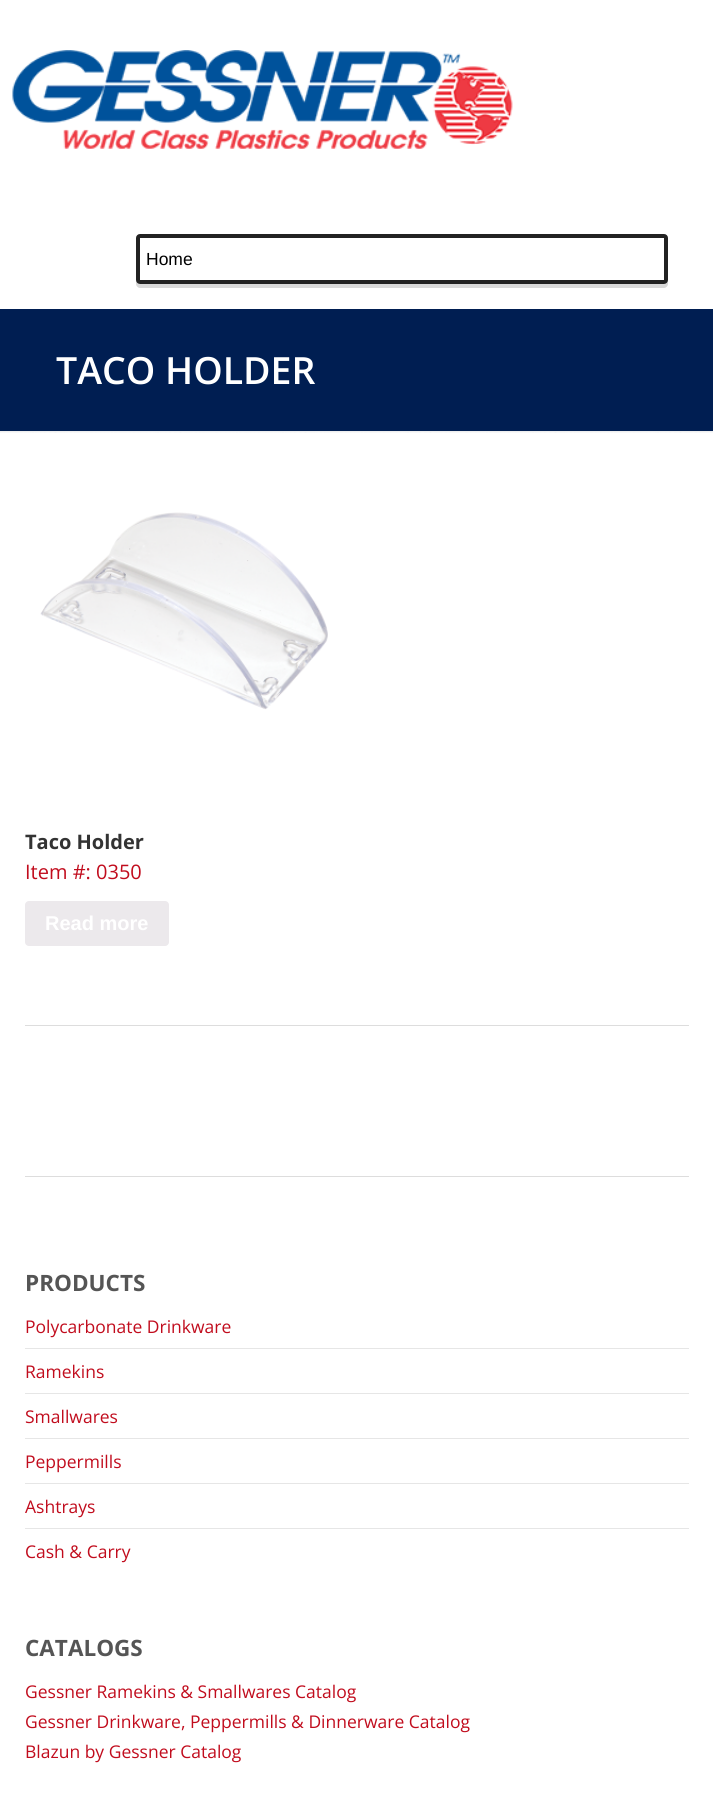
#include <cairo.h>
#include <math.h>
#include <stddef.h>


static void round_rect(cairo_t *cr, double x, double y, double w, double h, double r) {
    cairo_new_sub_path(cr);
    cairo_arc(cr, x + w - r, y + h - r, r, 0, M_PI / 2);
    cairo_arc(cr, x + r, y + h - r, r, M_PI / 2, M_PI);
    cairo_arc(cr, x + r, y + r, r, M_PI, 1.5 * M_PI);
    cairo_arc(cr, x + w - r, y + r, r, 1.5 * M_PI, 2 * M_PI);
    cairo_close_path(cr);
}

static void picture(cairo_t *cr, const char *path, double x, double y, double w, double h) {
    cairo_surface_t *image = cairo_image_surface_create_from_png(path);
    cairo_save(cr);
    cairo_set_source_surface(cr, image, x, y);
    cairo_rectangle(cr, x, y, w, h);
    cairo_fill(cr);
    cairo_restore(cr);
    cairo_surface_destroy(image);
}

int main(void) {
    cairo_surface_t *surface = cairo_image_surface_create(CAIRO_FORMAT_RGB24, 713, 1811);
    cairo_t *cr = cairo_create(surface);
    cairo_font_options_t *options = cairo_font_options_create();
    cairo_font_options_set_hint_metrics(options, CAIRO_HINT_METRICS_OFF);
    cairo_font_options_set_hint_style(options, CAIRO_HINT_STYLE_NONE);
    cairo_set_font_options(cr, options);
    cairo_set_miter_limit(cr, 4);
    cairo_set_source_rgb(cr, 1, 1, 1);
    cairo_paint(cr);
    picture(cr, "img1.png", 0, 432, 713, 1);
    picture(cr, "img2.png", 12, 50, 501, 99);
    cairo_set_source_rgb(cr, 0.851, 0.851, 0.851);
    cairo_new_path(cr);
    cairo_move_to(cr, 136, 241);
    cairo_line_to(cr, 136, 284);
    cairo_curve_to(cr, 136, 286, 138, 288, 140, 288);
    cairo_line_to(cr, 664, 288);
    cairo_curve_to(cr, 666, 288, 668, 286, 668, 284);
    cairo_line_to(cr, 668, 242);
    cairo_line_to(cr, 668, 240);
    cairo_line_to(cr, 668, 280);
    cairo_curve_to(cr, 668, 282, 666, 284, 664, 284);
    cairo_line_to(cr, 140, 284);
    cairo_curve_to(cr, 138, 284, 136, 282, 136, 280);
    cairo_close_path(cr);
    cairo_fill(cr);
    cairo_set_source_rgb(cr, 1, 1, 1);
    round_rect(cr, 138, 236, 528, 46, 2);
    cairo_fill_preserve(cr);
    cairo_set_source_rgb(cr, 0.133, 0.133, 0.133);
    cairo_set_line_width(cr, 4);
    cairo_stroke(cr);
    cairo_select_font_face(cr, "Liberation Sans", CAIRO_FONT_SLANT_NORMAL, CAIRO_FONT_WEIGHT_NORMAL);
    cairo_set_font_size(cr, 17.5);
    cairo_set_source_rgb(cr, 0, 0, 0);
    cairo_move_to(cr, 146, 265);
    cairo_show_text(cr, "Home");
    cairo_set_source_rgba(cr, 0.824, 0.824, 0.824, 0.1);
    cairo_new_path(cr);
    cairo_move_to(cr, 0, 432);
    cairo_line_to(cr, 0, 439);
    cairo_line_to(cr, 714, 439);
    cairo_line_to(cr, 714, 315);
    cairo_line_to(cr, 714, 432);
    cairo_close_path(cr);
    cairo_fill(cr);
    cairo_set_source_rgb(cr, 0, 0.118, 0.322);
    cairo_rectangle(cr, 0, 309, 713, 122);
    cairo_fill(cr);
    cairo_set_source_rgb(cr, 0.933, 0.933, 0.933);
    cairo_rectangle(cr, 0, 431, 713, 1);
    cairo_fill(cr);
    cairo_select_font_face(cr, "Open Sans SemiBold", CAIRO_FONT_SLANT_NORMAL, CAIRO_FONT_WEIGHT_NORMAL);
    cairo_set_font_size(cr, 37.5);
    cairo_set_source_rgb(cr, 1, 1, 1);
    cairo_move_to(cr, 56, 384);
    cairo_show_text(cr, "TACO HOLDER");
    cairo_rectangle(cr, 0, 433, 713, 6);
    cairo_fill(cr);
    picture(cr, "img3.png", 40, 512, 288, 198);
    cairo_select_font_face(cr, "Open Sans", CAIRO_FONT_SLANT_NORMAL, CAIRO_FONT_WEIGHT_BOLD);
    cairo_set_font_size(cr, 20);
    cairo_set_source_rgb(cr, 0.2, 0.2, 0.2);
    cairo_move_to(cr, 25, 849);
    cairo_show_text(cr, "Taco Holder");
    cairo_select_font_face(cr, "Open Sans", CAIRO_FONT_SLANT_NORMAL, CAIRO_FONT_WEIGHT_NORMAL);
    cairo_set_source_rgb(cr, 0.757, 0.047, 0.114);
    cairo_move_to(cr, 25, 879);
    cairo_show_text(cr, "Item #: 0350");
    cairo_set_source_rgb(cr, 0.922, 0.914, 0.922);
    round_rect(cr, 25, 901, 144, 45, 4);
    cairo_fill(cr);
    cairo_select_font_face(cr, "Liberation Sans", CAIRO_FONT_SLANT_NORMAL, CAIRO_FONT_WEIGHT_BOLD);
    cairo_set_source_rgb(cr, 1, 1, 1);
    cairo_move_to(cr, 45, 930);
    cairo_show_text(cr, "Read more");
    cairo_set_source_rgb(cr, 0.867, 0.867, 0.867);
    cairo_rectangle(cr, 25, 1025, 664, 1);
    cairo_fill(cr);
    cairo_rectangle(cr, 25, 1176, 664, 1);
    cairo_fill(cr);
    cairo_select_font_face(cr, "Open Sans", CAIRO_FONT_SLANT_NORMAL, CAIRO_FONT_WEIGHT_BOLD);
    cairo_set_font_size(cr, 22.5);
    cairo_set_source_rgb(cr, 0.333, 0.333, 0.333);
    cairo_move_to(cr, 25, 1291);
    cairo_show_text(cr, "PRODUCTS");
    cairo_select_font_face(cr, "Open Sans", CAIRO_FONT_SLANT_NORMAL, CAIRO_FONT_WEIGHT_NORMAL);
    cairo_set_font_size(cr, 17.5);
    cairo_set_source_rgb(cr, 0.757, 0.047, 0.114);
    cairo_move_to(cr, 25, 1333);
    cairo_show_text(cr, "Polycarbonate Drinkware");
    cairo_set_source_rgb(cr, 0.902, 0.902, 0.902);
    cairo_rectangle(cr, 25, 1348, 664, 1);
    cairo_fill(cr);
    cairo_set_source_rgb(cr, 0.757, 0.047, 0.114);
    cairo_move_to(cr, 25, 1378);
    cairo_show_text(cr, "Ramekins");
    cairo_set_source_rgb(cr, 0.902, 0.902, 0.902);
    cairo_rectangle(cr, 25, 1393, 664, 1);
    cairo_fill(cr);
    cairo_set_source_rgb(cr, 0.757, 0.047, 0.114);
    cairo_move_to(cr, 25, 1423);
    cairo_show_text(cr, "Smallwares");
    cairo_set_source_rgb(cr, 0.902, 0.902, 0.902);
    cairo_rectangle(cr, 25, 1438, 664, 1);
    cairo_fill(cr);
    cairo_set_source_rgb(cr, 0.757, 0.047, 0.114);
    cairo_move_to(cr, 25, 1468);
    cairo_show_text(cr, "Peppermills");
    cairo_set_source_rgb(cr, 0.902, 0.902, 0.902);
    cairo_rectangle(cr, 25, 1483, 664, 1);
    cairo_fill(cr);
    cairo_set_source_rgb(cr, 0.757, 0.047, 0.114);
    cairo_move_to(cr, 25, 1513);
    cairo_show_text(cr, "Ashtrays");
    cairo_set_source_rgb(cr, 0.902, 0.902, 0.902);
    cairo_rectangle(cr, 25, 1528, 664, 1);
    cairo_fill(cr);
    cairo_set_source_rgb(cr, 0.757, 0.047, 0.114);
    cairo_move_to(cr, 25, 1558);
    cairo_show_text(cr, "Cash & Carry");
    cairo_select_font_face(cr, "Open Sans", CAIRO_FONT_SLANT_NORMAL, CAIRO_FONT_WEIGHT_BOLD);
    cairo_set_font_size(cr, 22.5);
    cairo_set_source_rgb(cr, 0.333, 0.333, 0.333);
    cairo_move_to(cr, 25, 1656);
    cairo_show_text(cr, "CATALOGS");
    cairo_select_font_face(cr, "Open Sans", CAIRO_FONT_SLANT_NORMAL, CAIRO_FONT_WEIGHT_NORMAL);
    cairo_set_font_size(cr, 17.5);
    cairo_set_source_rgb(cr, 0.757, 0.047, 0.114);
    cairo_move_to(cr, 25, 1698);
    cairo_show_text(cr, "Gessner Ramekins & Smallwares Catalog");
    cairo_move_to(cr, 25, 1728);
    cairo_show_text(cr, "Gessner Drinkware, Peppermills & Dinnerware Catalog");
    cairo_move_to(cr, 25, 1758);
    cairo_show_text(cr, "Blazun by Gessner Catalog");
    cairo_surface_write_to_png(surface, "page.png");
    cairo_font_options_destroy(options);
    cairo_destroy(cr);
    cairo_surface_destroy(surface);
    return 0;
}
